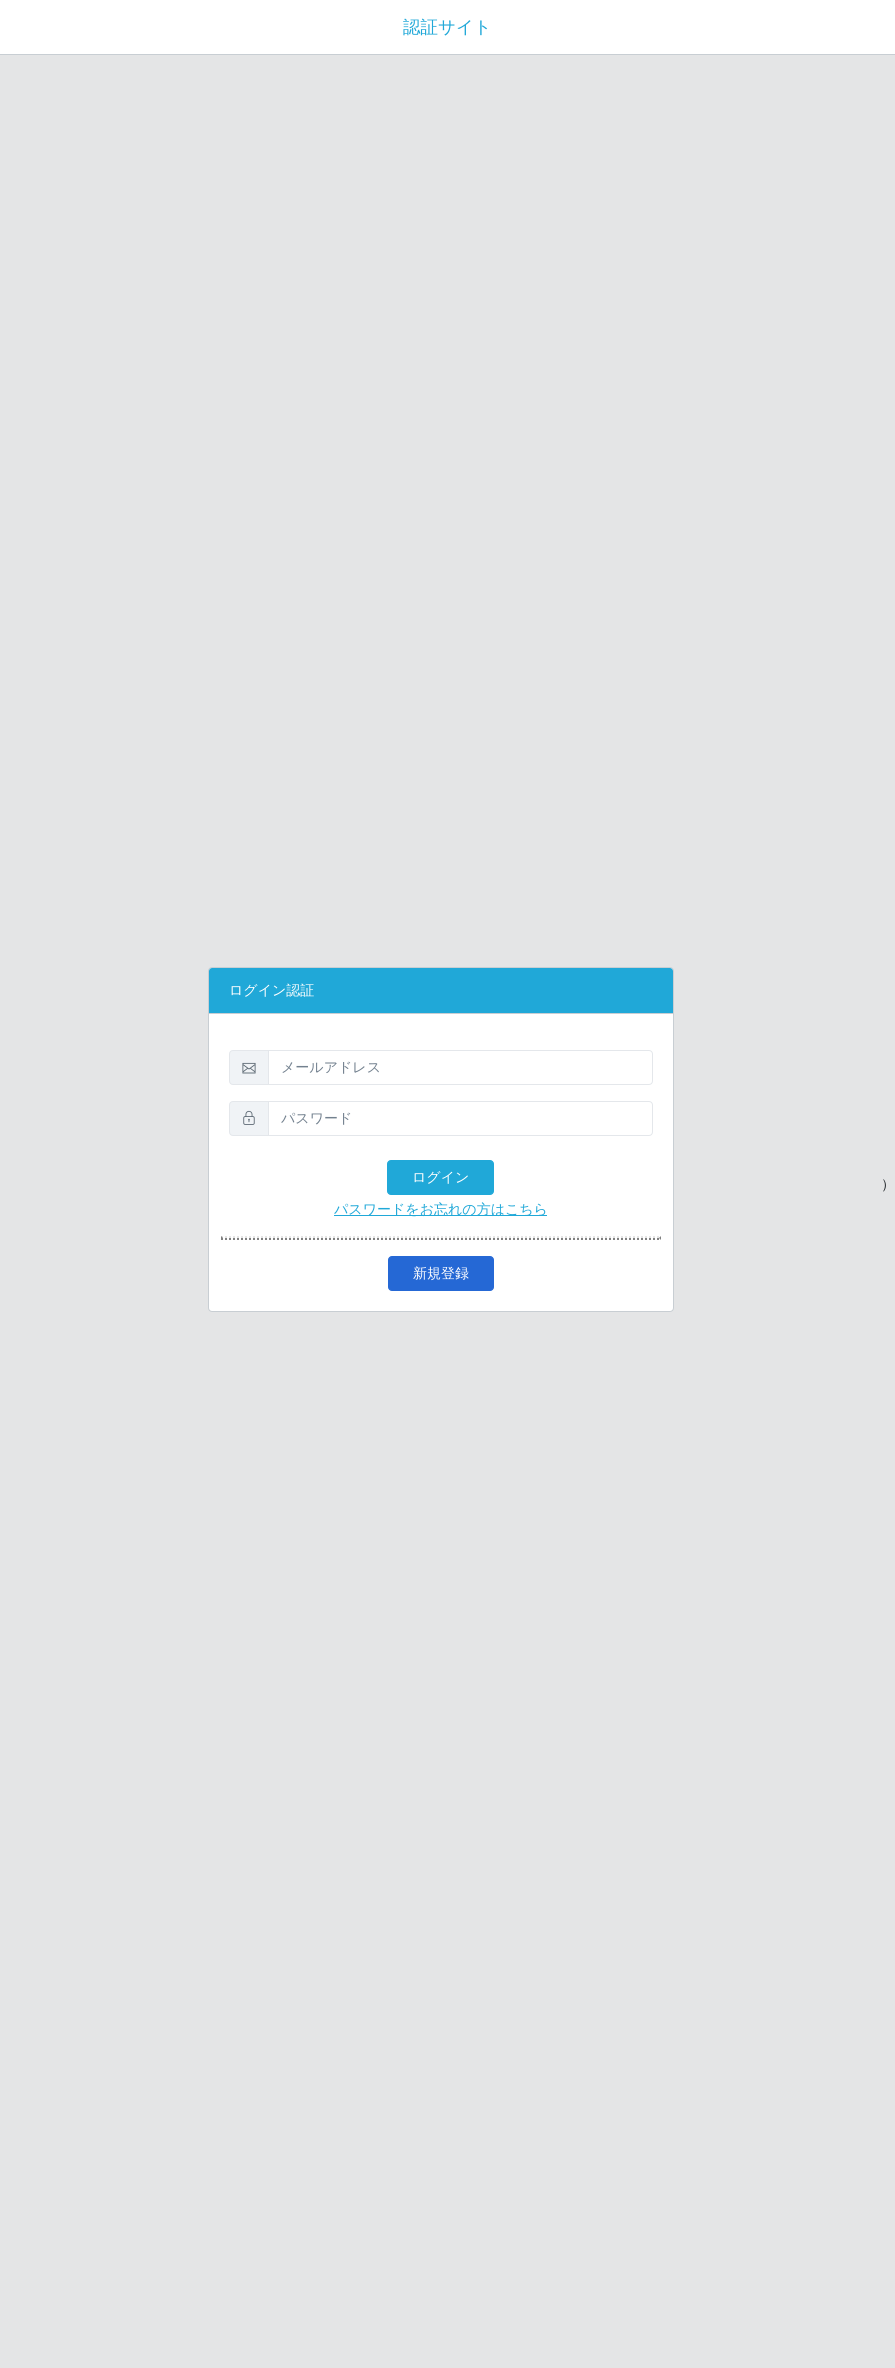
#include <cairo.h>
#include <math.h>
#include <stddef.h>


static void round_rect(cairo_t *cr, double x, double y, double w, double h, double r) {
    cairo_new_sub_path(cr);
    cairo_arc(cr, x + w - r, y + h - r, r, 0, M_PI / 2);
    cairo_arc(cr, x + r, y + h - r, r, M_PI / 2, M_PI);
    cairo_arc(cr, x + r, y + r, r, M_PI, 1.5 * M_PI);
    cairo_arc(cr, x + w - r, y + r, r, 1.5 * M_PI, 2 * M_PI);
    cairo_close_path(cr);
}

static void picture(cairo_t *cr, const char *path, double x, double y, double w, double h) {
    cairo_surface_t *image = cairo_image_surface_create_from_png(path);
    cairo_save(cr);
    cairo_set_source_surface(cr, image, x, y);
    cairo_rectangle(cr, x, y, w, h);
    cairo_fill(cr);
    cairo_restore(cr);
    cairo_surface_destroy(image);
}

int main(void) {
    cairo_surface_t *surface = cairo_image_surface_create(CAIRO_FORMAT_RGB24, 895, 2368);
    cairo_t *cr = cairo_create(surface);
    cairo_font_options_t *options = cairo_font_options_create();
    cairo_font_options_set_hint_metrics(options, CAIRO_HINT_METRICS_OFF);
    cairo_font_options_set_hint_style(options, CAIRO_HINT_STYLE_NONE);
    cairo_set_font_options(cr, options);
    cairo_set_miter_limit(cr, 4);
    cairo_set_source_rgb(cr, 0.894, 0.898, 0.902);
    cairo_paint(cr);
    cairo_set_source_rgb(cr, 1, 1, 1);
    cairo_rectangle(cr, 0, 0, 895, 54);
    cairo_fill(cr);
    cairo_set_source_rgb(cr, 0.784, 0.808, 0.827);
    cairo_rectangle(cr, 0, 54, 895, 1);
    cairo_fill(cr);
    cairo_select_font_face(cr, "WenQuanYi Zen Hei Medium", CAIRO_FONT_SLANT_NORMAL, CAIRO_FONT_WEIGHT_NORMAL);
    cairo_set_font_size(cr, 17.5);
    cairo_set_source_rgb(cr, 0.125, 0.659, 0.847);
    cairo_move_to(cr, 403, 33);
    cairo_show_text(cr, "認証サイト");
    cairo_set_source_rgb(cr, 1, 1, 1);
    round_rect(cr, 208.5, 967.5, 465, 344, 3.5);
    cairo_fill_preserve(cr);
    cairo_set_source_rgb(cr, 0.784, 0.808, 0.827);
    cairo_set_line_width(cr, 1);
    cairo_stroke(cr);
    cairo_set_source_rgb(cr, 0.125, 0.659, 0.847);
    cairo_new_path(cr);
    cairo_move_to(cr, 212, 968);
    cairo_line_to(cr, 670, 968);
    cairo_curve_to(cr, 671.5, 968, 673, 969.5, 673, 971);
    cairo_line_to(cr, 673, 1014);
    cairo_line_to(cr, 209, 1014);
    cairo_line_to(cr, 209, 971);
    cairo_curve_to(cr, 209, 969.5, 210.5, 968, 212, 968);
    cairo_close_path(cr);
    cairo_fill(cr);
    cairo_set_source_rgb(cr, 0.784, 0.808, 0.827);
    cairo_rectangle(cr, 209, 1013, 464, 1);
    cairo_fill(cr);
    cairo_set_font_size(cr, 14);
    cairo_set_source_rgb(cr, 1, 1, 1);
    cairo_move_to(cr, 229, 995);
    cairo_show_text(cr, "ログイン認証");
    cairo_set_source_rgb(cr, 0.941, 0.953, 0.961);
    cairo_new_path(cr);
    cairo_move_to(cr, 233, 1050.5);
    cairo_line_to(cr, 268.5, 1050.5);
    cairo_line_to(cr, 268.5, 1084.5);
    cairo_line_to(cr, 233, 1084.5);
    cairo_curve_to(cr, 231, 1084.5, 229.5, 1083, 229.5, 1081);
    cairo_line_to(cr, 229.5, 1054);
    cairo_curve_to(cr, 229.5, 1052, 231, 1050.5, 233, 1050.5);
    cairo_close_path(cr);
    cairo_fill_preserve(cr);
    cairo_set_source_rgb(cr, 0.894, 0.906, 0.918);
    cairo_stroke(cr);
    picture(cr, "img1.png", 242, 1062, 14, 12);
    cairo_new_path(cr);
    cairo_move_to(cr, 268.5, 1050.5);
    cairo_line_to(cr, 649, 1050.5);
    cairo_curve_to(cr, 651, 1050.5, 652.5, 1052, 652.5, 1054);
    cairo_line_to(cr, 652.5, 1081);
    cairo_curve_to(cr, 652.5, 1083, 651, 1084.5, 649, 1084.5);
    cairo_line_to(cr, 268.5, 1084.5);
    cairo_close_path(cr);
    cairo_stroke(cr);
    cairo_set_source_rgb(cr, 0.451, 0.506, 0.561);
    cairo_move_to(cr, 281, 1072);
    cairo_show_text(cr, "メールアドレス");
    cairo_set_source_rgb(cr, 0.941, 0.953, 0.961);
    cairo_new_path(cr);
    cairo_move_to(cr, 233, 1101.5);
    cairo_line_to(cr, 268.5, 1101.5);
    cairo_line_to(cr, 268.5, 1135.5);
    cairo_line_to(cr, 233, 1135.5);
    cairo_curve_to(cr, 231, 1135.5, 229.5, 1134, 229.5, 1132);
    cairo_line_to(cr, 229.5, 1105);
    cairo_curve_to(cr, 229.5, 1103, 231, 1101.5, 233, 1101.5);
    cairo_close_path(cr);
    cairo_fill_preserve(cr);
    cairo_set_source_rgb(cr, 0.894, 0.906, 0.918);
    cairo_stroke(cr);
    picture(cr, "img2.png", 243, 1110, 12, 15);
    cairo_new_path(cr);
    cairo_move_to(cr, 268.5, 1101.5);
    cairo_line_to(cr, 649, 1101.5);
    cairo_curve_to(cr, 651, 1101.5, 652.5, 1103, 652.5, 1105);
    cairo_line_to(cr, 652.5, 1132);
    cairo_curve_to(cr, 652.5, 1134, 651, 1135.5, 649, 1135.5);
    cairo_line_to(cr, 268.5, 1135.5);
    cairo_close_path(cr);
    cairo_stroke(cr);
    cairo_set_source_rgb(cr, 0.451, 0.506, 0.561);
    cairo_move_to(cr, 281, 1123);
    cairo_show_text(cr, "パスワード");
    cairo_set_source_rgb(cr, 0.125, 0.659, 0.847);
    round_rect(cr, 387.5, 1160.5, 106, 34, 3.5);
    cairo_fill_preserve(cr);
    cairo_stroke(cr);
    cairo_set_source_rgb(cr, 1, 1, 1);
    cairo_move_to(cr, 412, 1182);
    cairo_show_text(cr, "ログイン");
    cairo_set_source_rgb(cr, 0.125, 0.659, 0.847);
    cairo_rectangle(cr, 334, 1215, 213, 1);
    cairo_fill(cr);
    cairo_move_to(cr, 334, 1214);
    cairo_show_text(cr, "パスワードをお忘れの方はこちら");
    cairo_new_path(cr);
    cairo_move_to(cr, 221, 1237);
    cairo_line_to(cr, 661, 1237);
    cairo_set_source_rgb(cr, 0.902, 0.902, 0.902);
    cairo_set_line_width(cr, 2);
    cairo_set_dash(cr, (double[]){2, 2}, 2, 0);
    cairo_stroke(cr);
    cairo_set_source_rgb(cr, 0.502, 0.502, 0.502);
    cairo_new_path(cr);
    cairo_move_to(cr, 661, 1236);
    cairo_line_to(cr, 661, 1240);
    cairo_line_to(cr, 659, 1238);
    cairo_close_path(cr);
    cairo_fill(cr);
    cairo_new_path(cr);
    cairo_move_to(cr, 221, 1239);
    cairo_line_to(cr, 661, 1239);
    cairo_stroke(cr);
    cairo_new_path(cr);
    cairo_move_to(cr, 221, 1240);
    cairo_line_to(cr, 221, 1236);
    cairo_line_to(cr, 223, 1238);
    cairo_close_path(cr);
    cairo_fill(cr);
    cairo_set_source_rgb(cr, 0.145, 0.408, 0.835);
    round_rect(cr, 388.5, 1256.5, 105, 34, 3.5);
    cairo_fill_preserve(cr);
    cairo_set_line_width(cr, 1);
    cairo_set_dash(cr, NULL, 0, 0);
    cairo_stroke(cr);
    cairo_set_source_rgb(cr, 1, 1, 1);
    cairo_move_to(cr, 413, 1278);
    cairo_show_text(cr, "新規登録");
    cairo_set_source_rgb(cr, 0.137, 0.157, 0.173);
    cairo_move_to(cr, 881, 1189);
    cairo_show_text(cr, "）");
    cairo_surface_write_to_png(surface, "page.png");
    cairo_font_options_destroy(options);
    cairo_destroy(cr);
    cairo_surface_destroy(surface);
    return 0;
}
